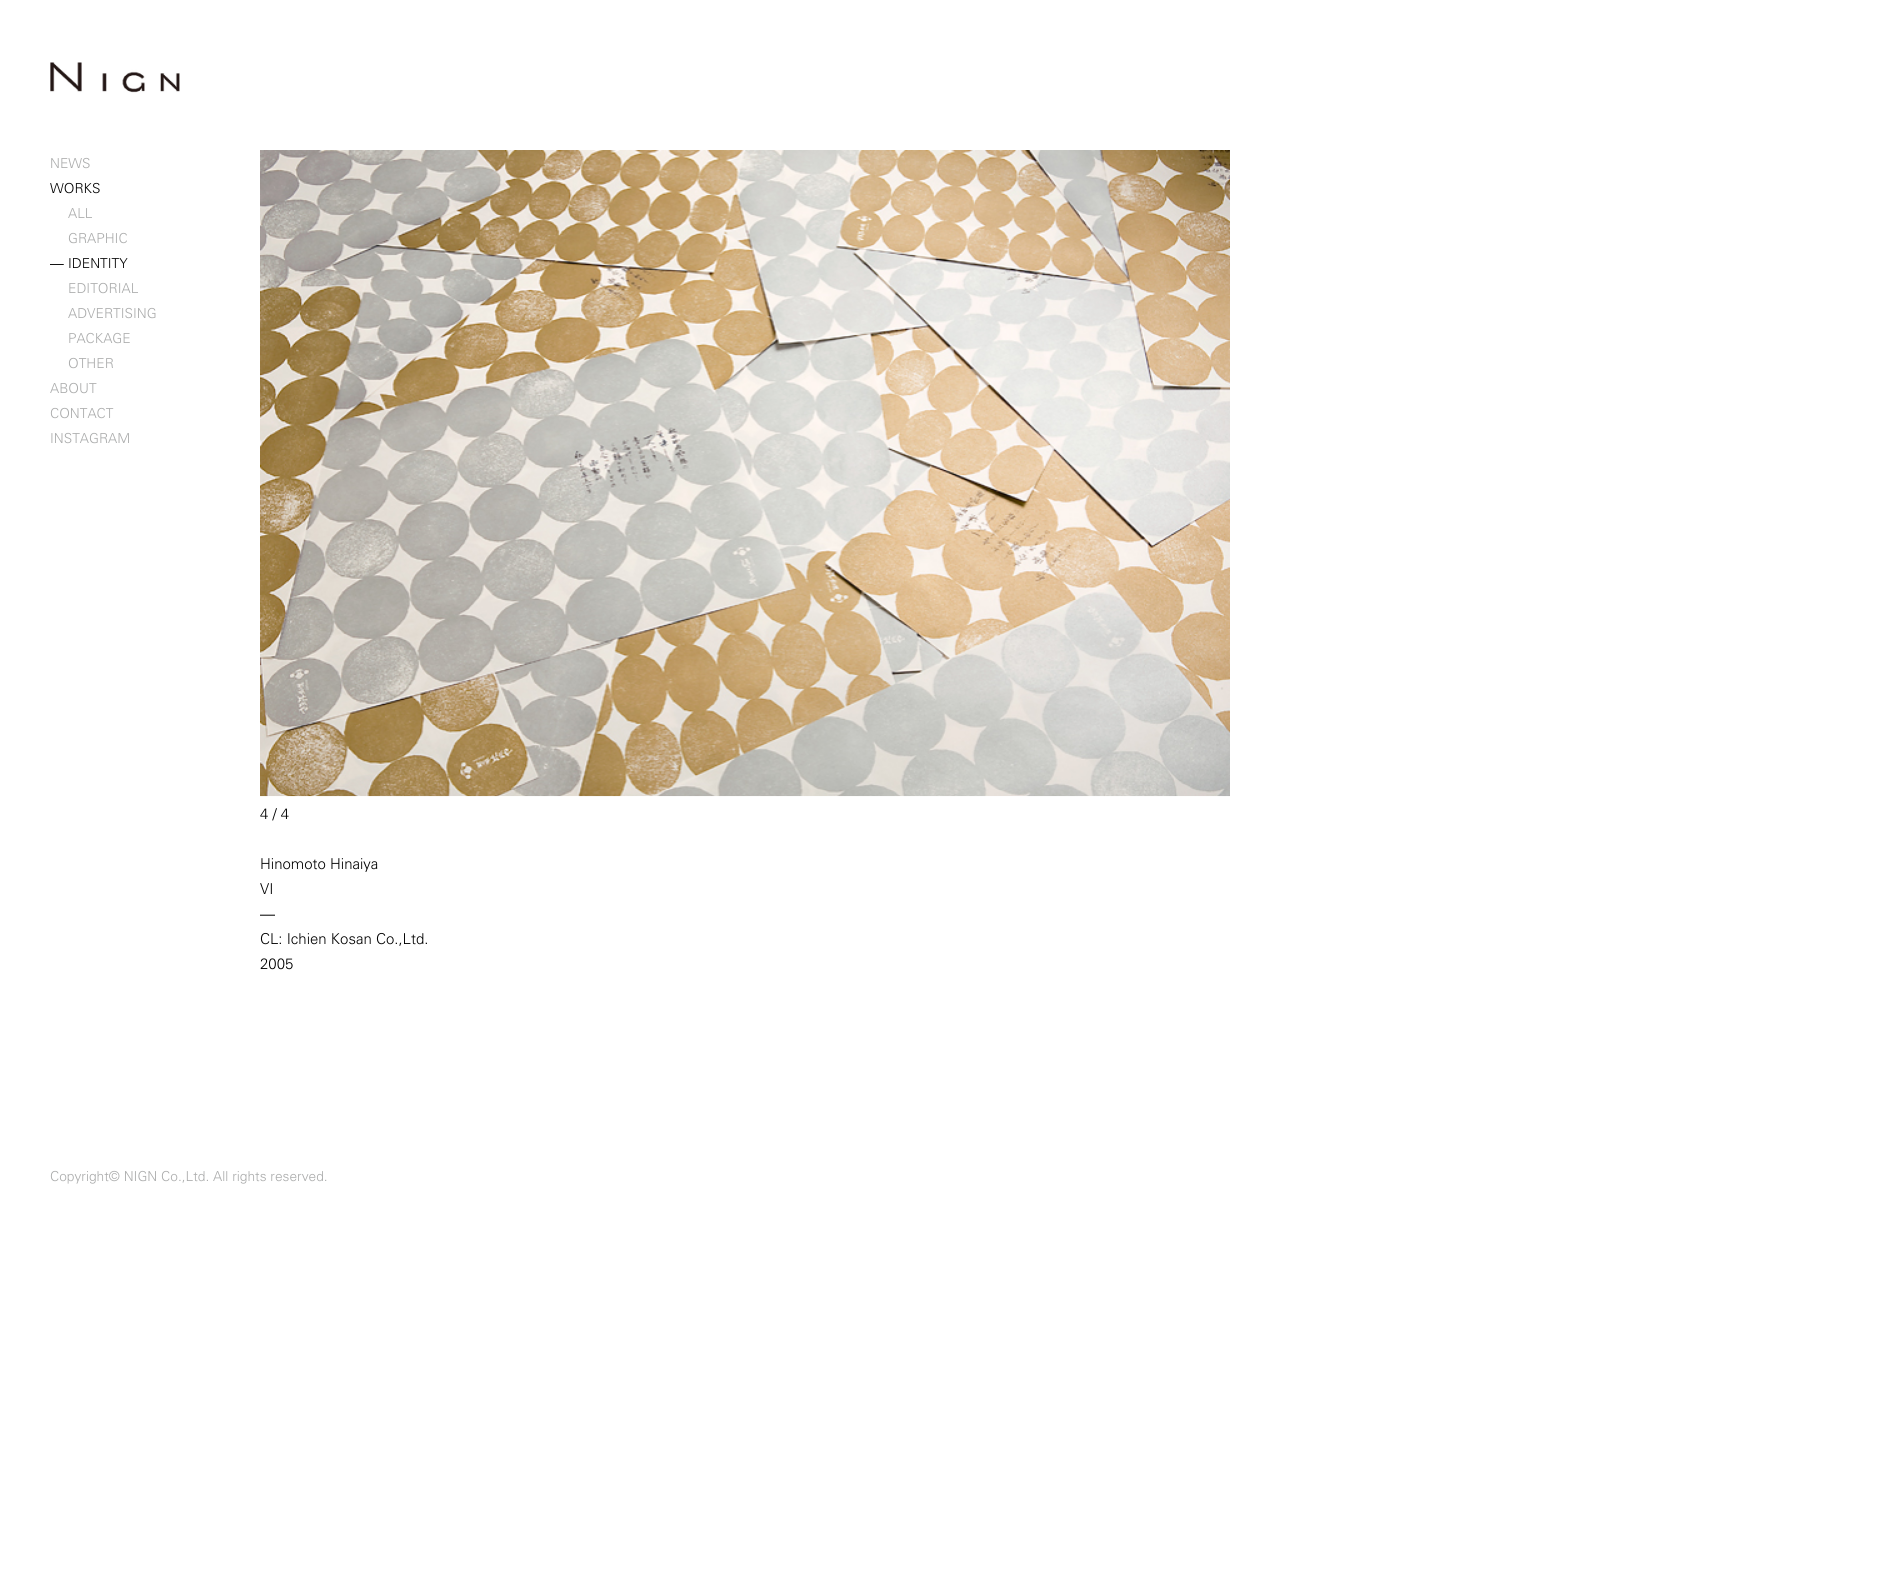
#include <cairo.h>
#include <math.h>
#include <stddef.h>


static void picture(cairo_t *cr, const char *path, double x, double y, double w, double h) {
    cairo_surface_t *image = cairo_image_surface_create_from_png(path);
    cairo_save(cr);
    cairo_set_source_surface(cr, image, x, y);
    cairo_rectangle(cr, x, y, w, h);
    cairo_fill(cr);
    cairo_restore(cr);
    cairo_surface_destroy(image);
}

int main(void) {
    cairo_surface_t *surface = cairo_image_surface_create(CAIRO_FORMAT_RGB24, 1889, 1590);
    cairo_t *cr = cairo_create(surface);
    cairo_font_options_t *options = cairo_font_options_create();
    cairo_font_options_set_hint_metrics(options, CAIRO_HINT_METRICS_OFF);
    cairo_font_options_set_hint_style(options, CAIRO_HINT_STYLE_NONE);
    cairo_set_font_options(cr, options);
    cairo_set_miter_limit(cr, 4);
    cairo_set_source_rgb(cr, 1, 1, 1);
    cairo_paint(cr);
    picture(cr, "img1.png", 50, 62, 130, 31);
    cairo_select_font_face(cr, "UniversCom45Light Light", CAIRO_FONT_SLANT_NORMAL, CAIRO_FONT_WEIGHT_NORMAL);
    cairo_set_font_size(cr, 13.75);
    cairo_set_source_rgb(cr, 0.667, 0.671, 0.671);
    cairo_move_to(cr, 50, 168);
    cairo_show_text(cr, "NEWS");
    cairo_set_source_rgb(cr, 0, 0, 0);
    cairo_move_to(cr, 50, 193);
    cairo_show_text(cr, "WORKS");
    cairo_set_source_rgb(cr, 0.667, 0.671, 0.671);
    cairo_move_to(cr, 68, 218);
    cairo_show_text(cr, "ALL");
    cairo_move_to(cr, 68, 243);
    cairo_show_text(cr, "GRAPHIC");
    cairo_select_font_face(cr, "Liberation Sans", CAIRO_FONT_SLANT_NORMAL, CAIRO_FONT_WEIGHT_NORMAL);
    cairo_set_source_rgb(cr, 0, 0, 0);
    cairo_move_to(cr, 50, 268);
    cairo_show_text(cr, "―");
    cairo_select_font_face(cr, "UniversCom45Light Light", CAIRO_FONT_SLANT_NORMAL, CAIRO_FONT_WEIGHT_NORMAL);
    cairo_move_to(cr, 68, 268);
    cairo_show_text(cr, "IDENTITY");
    cairo_set_source_rgb(cr, 0.667, 0.671, 0.671);
    cairo_move_to(cr, 68, 293);
    cairo_show_text(cr, "EDITORIAL");
    cairo_move_to(cr, 68, 318);
    cairo_show_text(cr, "ADVERTISING");
    cairo_move_to(cr, 68, 343);
    cairo_show_text(cr, "PACKAGE");
    cairo_move_to(cr, 68, 368);
    cairo_show_text(cr, "OTHER");
    cairo_move_to(cr, 50, 393);
    cairo_show_text(cr, "ABOUT");
    cairo_move_to(cr, 50, 418);
    cairo_show_text(cr, "CONTACT");
    cairo_move_to(cr, 50, 443);
    cairo_show_text(cr, "INSTAGRAM");
    picture(cr, "img2.png", 260, 150, 970, 647);
    cairo_set_font_size(cr, 15);
    cairo_set_source_rgb(cr, 0, 0, 0);
    cairo_move_to(cr, 260, 819);
    cairo_show_text(cr, "4 / 4");
    cairo_move_to(cr, 260, 869);
    cairo_show_text(cr, "Hinomoto Hinaiya");
    cairo_move_to(cr, 260, 894);
    cairo_show_text(cr, "VI");
    cairo_select_font_face(cr, "Liberation Sans", CAIRO_FONT_SLANT_NORMAL, CAIRO_FONT_WEIGHT_NORMAL);
    cairo_move_to(cr, 260, 919);
    cairo_show_text(cr, "―");
    cairo_select_font_face(cr, "UniversCom45Light Light", CAIRO_FONT_SLANT_NORMAL, CAIRO_FONT_WEIGHT_NORMAL);
    cairo_move_to(cr, 260, 944);
    cairo_show_text(cr, "CL: Ichien Kosan Co.,Ltd.");
    cairo_move_to(cr, 260, 969);
    cairo_show_text(cr, "2005");
    cairo_set_font_size(cr, 13.75);
    cairo_set_source_rgb(cr, 0.667, 0.671, 0.671);
    cairo_move_to(cr, 50, 1181);
    cairo_show_text(cr, "Copyright© NIGN Co.,Ltd. All rights reserved.");
    cairo_surface_write_to_png(surface, "page.png");
    cairo_font_options_destroy(options);
    cairo_destroy(cr);
    cairo_surface_destroy(surface);
    return 0;
}
